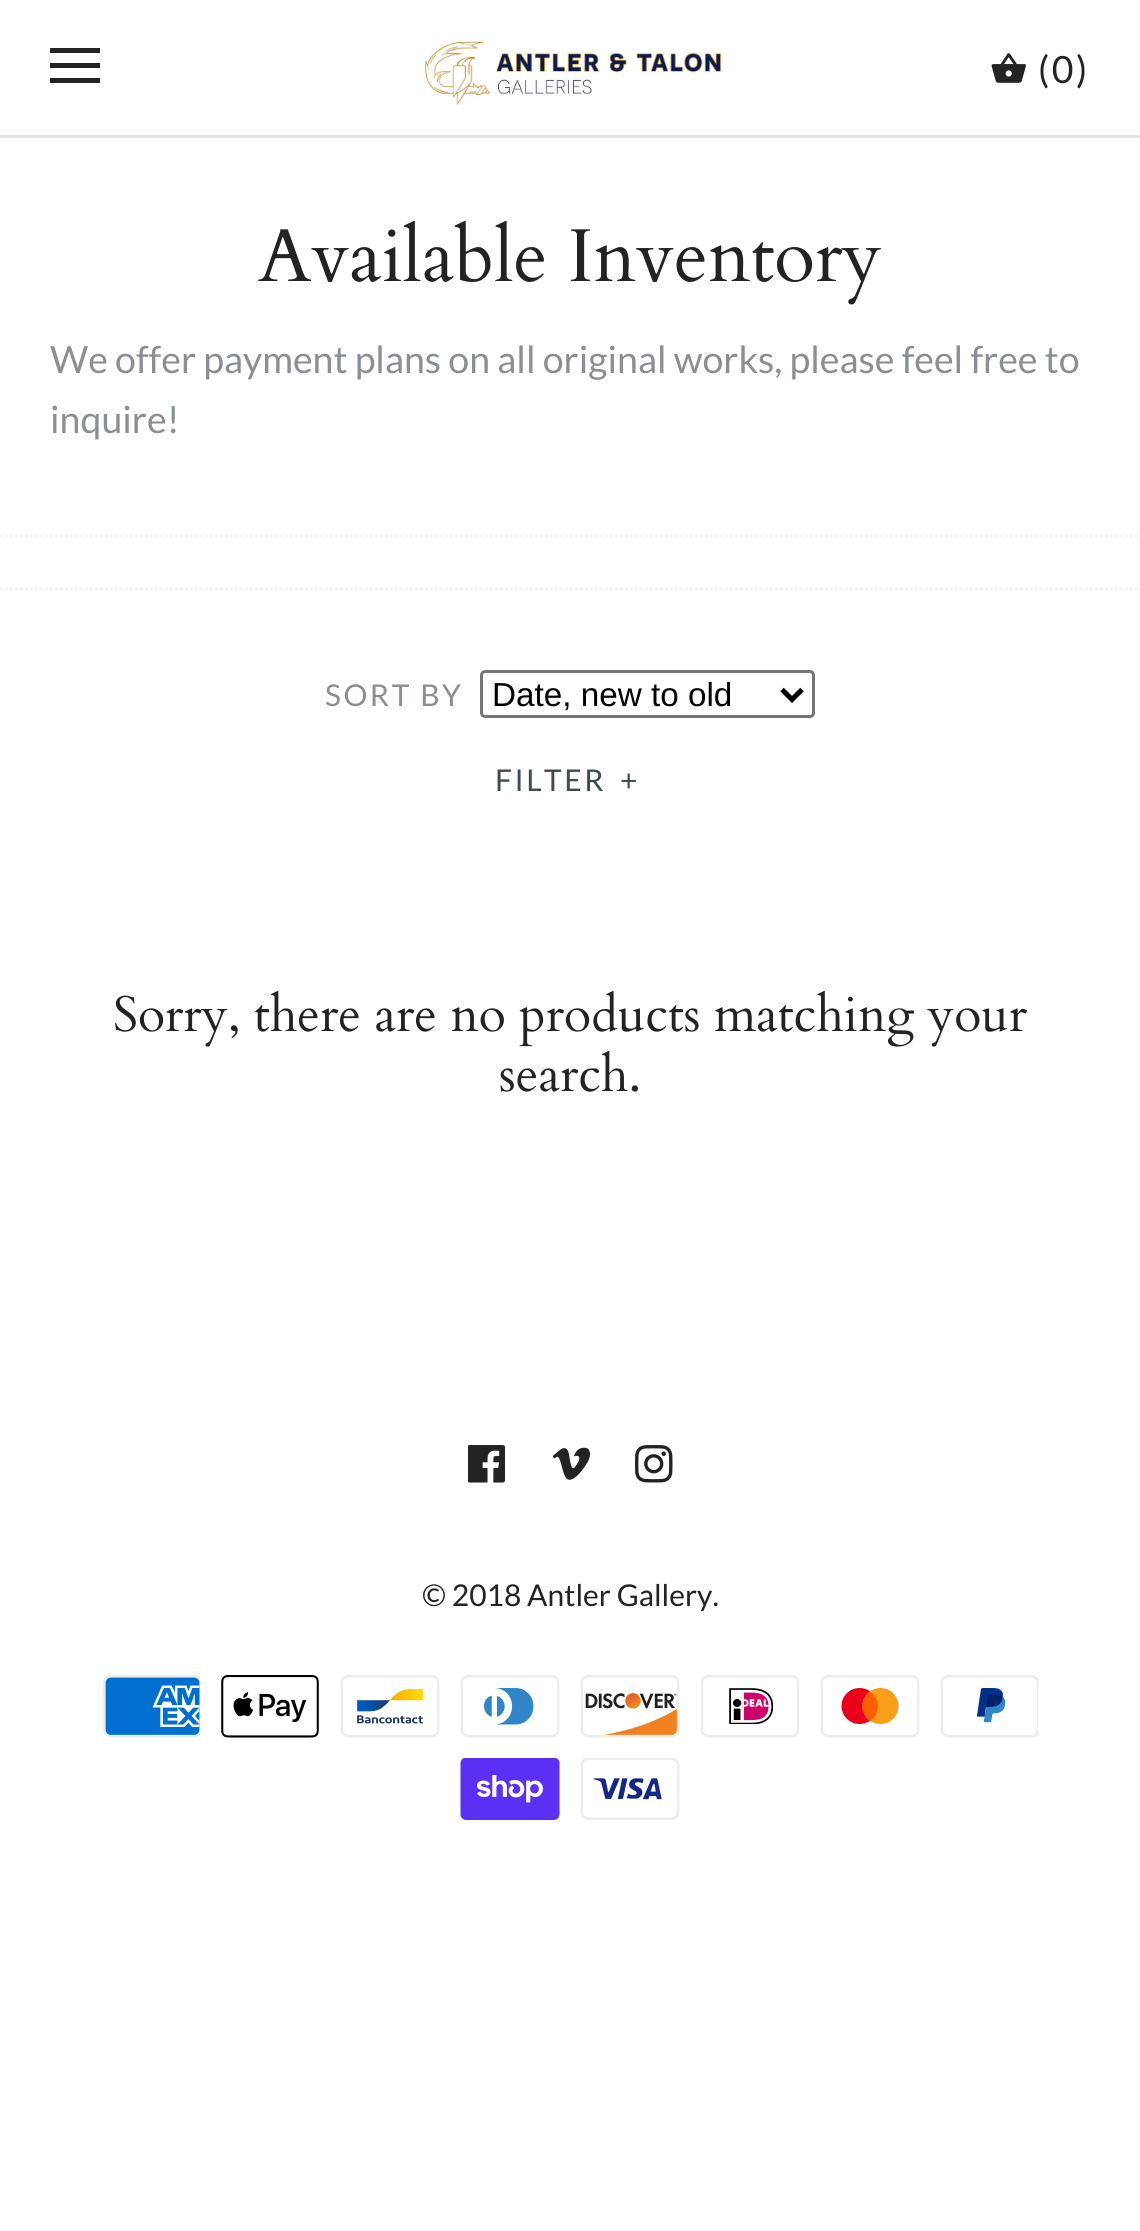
#include <cairo.h>
#include <math.h>
#include <stddef.h>


static void spaced_text(cairo_t *cr, double x, double y, const char *s, double letter, double word) {
    cairo_move_to(cr, x, y);
    while (*s) {
        char ch[5] = {0};
        int n = 0;
        do ch[n++] = *s++; while ((*s & 0xC0) == 0x80);
        cairo_show_text(cr, ch);
        cairo_rel_move_to(cr, letter + word * (*ch == ' '), 0);
    }
}

static void round_rect(cairo_t *cr, double x, double y, double w, double h, double r) {
    cairo_new_sub_path(cr);
    cairo_arc(cr, x + w - r, y + h - r, r, 0, M_PI / 2);
    cairo_arc(cr, x + r, y + h - r, r, M_PI / 2, M_PI);
    cairo_arc(cr, x + r, y + r, r, M_PI, 1.5 * M_PI);
    cairo_arc(cr, x + w - r, y + r, r, 1.5 * M_PI, 2 * M_PI);
    cairo_close_path(cr);
}

static void picture(cairo_t *cr, const char *path, double x, double y, double w, double h) {
    cairo_surface_t *image = cairo_image_surface_create_from_png(path);
    cairo_save(cr);
    cairo_set_source_surface(cr, image, x, y);
    cairo_rectangle(cr, x, y, w, h);
    cairo_fill(cr);
    cairo_restore(cr);
    cairo_surface_destroy(image);
}

int main(void) {
    cairo_surface_t *surface = cairo_image_surface_create(CAIRO_FORMAT_RGB24, 1140, 2231);
    cairo_t *cr = cairo_create(surface);
    cairo_font_options_t *options = cairo_font_options_create();
    cairo_font_options_set_hint_metrics(options, CAIRO_HINT_METRICS_OFF);
    cairo_font_options_set_hint_style(options, CAIRO_HINT_STYLE_NONE);
    cairo_set_font_options(cr, options);
    cairo_set_miter_limit(cr, 4);
    cairo_set_source_rgb(cr, 1, 1, 1);
    cairo_paint(cr);
    cairo_set_source_rgb(cr, 0.886, 0.886, 0.886);
    cairo_rectangle(cr, 0, 135, 1140, 3);
    cairo_fill(cr);
    cairo_set_source_rgb(cr, 0.137, 0.137, 0.137);
    cairo_rectangle(cr, 50, 48, 50, 5);
    cairo_fill(cr);
    cairo_rectangle(cr, 50, 63, 50, 5);
    cairo_fill(cr);
    cairo_rectangle(cr, 50, 78, 50, 5);
    cairo_fill(cr);
    picture(cr, "img1.png", 424, 41, 299, 64);
    picture(cr, "img2.png", 991, 53, 35, 30);
    cairo_select_font_face(cr, "Lato", CAIRO_FONT_SLANT_NORMAL, CAIRO_FONT_WEIGHT_NORMAL);
    cairo_set_font_size(cr, 37.5);
    spaced_text(cr, 1038, 83, "(0)", 2.5, 0);
    cairo_select_font_face(cr, "Cardo", CAIRO_FONT_SLANT_NORMAL, CAIRO_FONT_WEIGHT_NORMAL);
    cairo_set_font_size(cr, 75);
    cairo_move_to(cr, 258, 281);
    cairo_show_text(cr, "Available Inventory");
    cairo_select_font_face(cr, "Lato", CAIRO_FONT_SLANT_NORMAL, CAIRO_FONT_WEIGHT_NORMAL);
    cairo_set_font_size(cr, 37.5);
    cairo_set_source_rgb(cr, 0.541, 0.561, 0.576);
    cairo_move_to(cr, 50, 373);
    cairo_show_text(cr, "We offer payment plans on all original works, please feel free to");
    cairo_move_to(cr, 50, 433);
    cairo_show_text(cr, "inquire!");
    cairo_new_path(cr);
    cairo_move_to(cr, 0, 536);
    cairo_line_to(cr, 1140, 536);
    cairo_set_source_rgb(cr, 0.941, 0.941, 0.941);
    cairo_set_line_width(cr, 2.5);
    cairo_set_dash(cr, (double[]){2.5, 2.5}, 2, 0);
    cairo_stroke(cr);
    cairo_new_path(cr);
    cairo_move_to(cr, 0, 589);
    cairo_line_to(cr, 1140, 589);
    cairo_stroke(cr);
    cairo_set_font_size(cr, 30);
    cairo_set_source_rgb(cr, 0.541, 0.561, 0.576);
    spaced_text(cr, 325, 706, "SORT BY", 2.5, 0);
    round_rect(cr, 481.5, 671.5, 332, 45, 3.5);
    cairo_set_source_rgb(cr, 0.463, 0.463, 0.463);
    cairo_set_line_width(cr, 3);
    cairo_set_dash(cr, NULL, 0, 0);
    cairo_stroke(cr);
    cairo_new_path(cr);
    cairo_move_to(cr, 782, 689.5);
    cairo_line_to(cr, 792, 699.5);
    cairo_line_to(cr, 802, 689.5);
    cairo_set_source_rgb(cr, 0, 0, 0);
    cairo_set_line_width(cr, 5);
    cairo_stroke(cr);
    cairo_select_font_face(cr, "Liberation Sans", CAIRO_FONT_SLANT_NORMAL, CAIRO_FONT_WEIGHT_NORMAL);
    cairo_set_font_size(cr, 33.25);
    cairo_move_to(cr, 492, 706);
    cairo_show_text(cr, "Date, new to old");
    cairo_select_font_face(cr, "Lato", CAIRO_FONT_SLANT_NORMAL, CAIRO_FONT_WEIGHT_NORMAL);
    cairo_set_font_size(cr, 30);
    cairo_set_source_rgb(cr, 0.239, 0.298, 0.31);
    spaced_text(cr, 495, 791, "FILTER", 2.5, 0);
    spaced_text(cr, 620, 791, "+", 2.5, 0);
    cairo_select_font_face(cr, "Cardo", CAIRO_FONT_SLANT_NORMAL, CAIRO_FONT_WEIGHT_NORMAL);
    cairo_set_font_size(cr, 50);
    cairo_set_source_rgb(cr, 0.137, 0.137, 0.137);
    cairo_move_to(cr, 113, 1031);
    cairo_show_text(cr, "Sorry, there are no products matching your");
    cairo_move_to(cr, 499, 1091);
    cairo_show_text(cr, "search.");
    picture(cr, "img3.png", 468, 1445, 37, 38);
    picture(cr, "img4.png", 553, 1447, 37, 33);
    picture(cr, "img5.png", 635, 1445, 38, 38);
    cairo_select_font_face(cr, "Lato", CAIRO_FONT_SLANT_NORMAL, CAIRO_FONT_WEIGHT_NORMAL);
    cairo_set_font_size(cr, 30);
    cairo_move_to(cr, 422, 1606);
    cairo_show_text(cr, "© 2018 Antler Gallery.");
    picture(cr, "img6.png", 103, 1675, 97, 63);
    picture(cr, "img7.png", 221, 1675, 98, 63);
    picture(cr, "img8.png", 340, 1675, 100, 63);
    picture(cr, "img9.png", 460, 1675, 100, 63);
    picture(cr, "img10.png", 580, 1675, 100, 63);
    picture(cr, "img11.png", 701, 1675, 98, 63);
    picture(cr, "img12.png", 820, 1675, 100, 63);
    picture(cr, "img13.png", 940, 1675, 98, 63);
    picture(cr, "img14.png", 460, 1758, 100, 62);
    picture(cr, "img15.png", 580, 1758, 100, 62);
    cairo_surface_write_to_png(surface, "page.png");
    cairo_font_options_destroy(options);
    cairo_destroy(cr);
    cairo_surface_destroy(surface);
    return 0;
}
